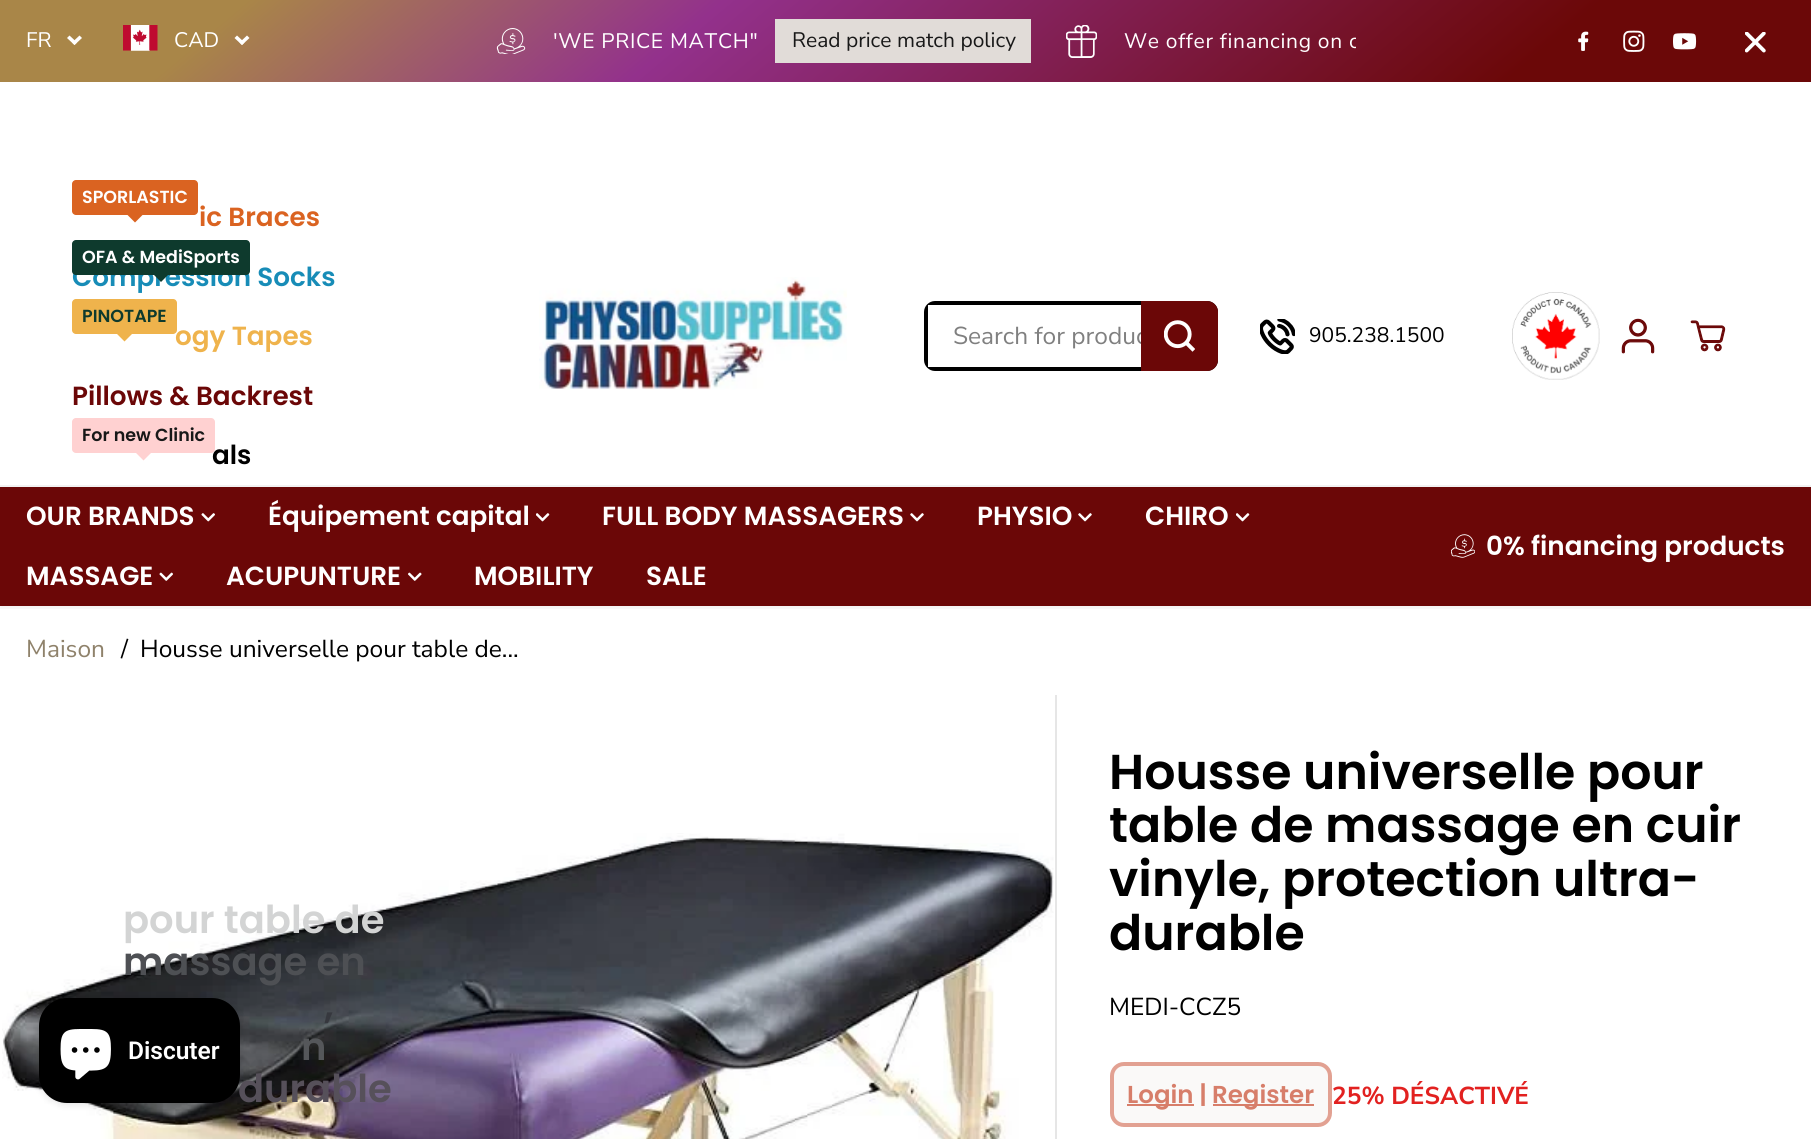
#include <cairo.h>
#include <math.h>
#include <stddef.h>


static void spaced_text(cairo_t *cr, double x, double y, const char *s, double letter, double word) {
    cairo_move_to(cr, x, y);
    while (*s) {
        char ch[5] = {0};
        int n = 0;
        do ch[n++] = *s++; while ((*s & 0xC0) == 0x80);
        cairo_show_text(cr, ch);
        cairo_rel_move_to(cr, letter + word * (*ch == ' '), 0);
    }
}

static void round_rect(cairo_t *cr, double x, double y, double w, double h, double r) {
    cairo_new_sub_path(cr);
    cairo_arc(cr, x + w - r, y + h - r, r, 0, M_PI / 2);
    cairo_arc(cr, x + r, y + h - r, r, M_PI / 2, M_PI);
    cairo_arc(cr, x + r, y + r, r, M_PI, 1.5 * M_PI);
    cairo_arc(cr, x + w - r, y + r, r, 1.5 * M_PI, 2 * M_PI);
    cairo_close_path(cr);
}

static void shadow(cairo_t *cr, double x, double y, double w, double h, double r, double blur, double alpha) {
    cairo_push_group_with_content(cr, CAIRO_CONTENT_ALPHA);
    cairo_set_operator(cr, CAIRO_OPERATOR_SOURCE);
    for (int i = 15; i >= -15 && fmin(w, h) + blur * i / 3 > 0; i -= 2) {
        double e = blur * i / 6;
        cairo_set_source_rgba(cr, 0, 0, 0, alpha * erfc((i - 1) / 8.5) / 2);
        round_rect(cr, x - e, y - e, w + 2 * e, h + 2 * e, fmax(0, fmin(r + e + blur * .6, fmin(w, h) / 2 + e)));
        cairo_fill(cr);
    }
    cairo_pattern_t *soft = cairo_pop_group(cr);
    cairo_mask(cr, soft);
    cairo_pattern_destroy(soft);
}

static void picture(cairo_t *cr, const char *path, double x, double y, double w, double h) {
    cairo_surface_t *image = cairo_image_surface_create_from_png(path);
    cairo_save(cr);
    cairo_set_source_surface(cr, image, x, y);
    cairo_rectangle(cr, x, y, w, h);
    cairo_fill(cr);
    cairo_restore(cr);
    cairo_surface_destroy(image);
}

int main(void) {
    cairo_surface_t *surface = cairo_image_surface_create(CAIRO_FORMAT_RGB24, 1811, 1139);
    cairo_t *cr = cairo_create(surface);
    cairo_font_options_t *options = cairo_font_options_create();
    cairo_font_options_set_hint_metrics(options, CAIRO_HINT_METRICS_OFF);
    cairo_font_options_set_hint_style(options, CAIRO_HINT_STYLE_NONE);
    cairo_set_font_options(cr, options);
    cairo_set_miter_limit(cr, 4);
    cairo_pattern_t *gradient;
    cairo_set_source_rgb(cr, 1, 1, 1);
    cairo_paint(cr);
    gradient = cairo_pattern_create_linear(1300, 511, 511, -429);
    cairo_pattern_add_color_stop_rgba(gradient, 0.16, 0.42, 0.031, 0.031, 1);
    cairo_pattern_add_color_stop_rgba(gradient, 0.62, 0.576, 0.192, 0.549, 1);
    cairo_pattern_add_color_stop_rgba(gradient, 0.87, 0.663, 0.525, 0.282, 1);
    cairo_set_source(cr, gradient);
    cairo_pattern_destroy(gradient);
    cairo_rectangle(cr, 0, 0, 1811, 82);
    cairo_fill(cr);
    cairo_select_font_face(cr, "Nunito Sans", CAIRO_FONT_SLANT_NORMAL, CAIRO_FONT_WEIGHT_NORMAL);
    cairo_set_font_size(cr, 21);
    cairo_set_source_rgb(cr, 1, 1, 1);
    cairo_move_to(cr, 26, 47);
    cairo_show_text(cr, "FR");
    cairo_new_path(cr);
    cairo_move_to(cr, 79.5, 35.5);
    cairo_line_to(cr, 82, 38);
    cairo_line_to(cr, 74.5, 45);
    cairo_line_to(cr, 72, 42.5);
    cairo_close_path(cr);
    cairo_fill(cr);
    cairo_new_path(cr);
    cairo_move_to(cr, 69.5, 35.5);
    cairo_line_to(cr, 77, 42.5);
    cairo_line_to(cr, 74.5, 45);
    cairo_line_to(cr, 67, 38);
    cairo_close_path(cr);
    cairo_fill(cr);
    picture(cr, "img1.png", 123, 25, 35, 26);
    cairo_move_to(cr, 174, 47);
    cairo_show_text(cr, "CAD");
    cairo_new_path(cr);
    cairo_move_to(cr, 247, 35.5);
    cairo_line_to(cr, 249.5, 38);
    cairo_line_to(cr, 242, 45);
    cairo_line_to(cr, 239.5, 42.5);
    cairo_close_path(cr);
    cairo_fill(cr);
    cairo_new_path(cr);
    cairo_move_to(cr, 237, 35.5);
    cairo_line_to(cr, 244.5, 42.5);
    cairo_line_to(cr, 242, 45);
    cairo_line_to(cr, 234.5, 38);
    cairo_close_path(cr);
    cairo_fill(cr);
    picture(cr, "img2.png", 496, 28, 30, 26);
    spaced_text(cr, 553, 48, "'WE PRICE MATCH\"", 0.7, 0);
    cairo_set_source_rgb(cr, 0.882, 0.863, 0.847);
    cairo_rectangle(cr, 775, 19, 256, 44);
    cairo_fill(cr);
    cairo_set_source_rgb(cr, 0.094, 0.094, 0.094);
    cairo_move_to(cr, 792, 47);
    cairo_show_text(cr, "Read price match policy");
    picture(cr, "img3.png", 1066, 25, 31, 33);
    cairo_save(cr);
    cairo_rectangle(cr, 478, 5, 878, 72);
    cairo_clip(cr);
    cairo_set_source_rgb(cr, 1, 1, 1);
    spaced_text(cr, 1124, 48, "We offer financing on c", 0.7, 0);
    cairo_restore(cr);
    picture(cr, "img4.png", 1578, 31, 11, 20);
    picture(cr, "img5.png", 1623, 30, 22, 22);
    picture(cr, "img6.png", 1673, 33, 24, 17);
    picture(cr, "img7.png", 1745, 32, 21, 21);
    cairo_save(cr);
    cairo_rectangle(cr, 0, 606, 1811, 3);
    cairo_clip(cr);
    cairo_set_source_rgb(cr, 0, 0, 0);
    shadow(cr, 0, 191, 1811, 418, 0, 2, 0.05);
    cairo_restore(cr);
    cairo_set_source_rgb(cr, 0.855, 0.388, 0.129);
    round_rect(cr, 72, 180, 126, 35, 4);
    cairo_fill(cr);
    cairo_select_font_face(cr, "Poppins SemiBold", CAIRO_FONT_SLANT_NORMAL, CAIRO_FONT_WEIGHT_NORMAL);
    cairo_set_font_size(cr, 17.5);
    cairo_set_source_rgb(cr, 1, 1, 1);
    cairo_move_to(cr, 82, 203);
    cairo_show_text(cr, "SPORLASTIC");
    cairo_set_source_rgb(cr, 0.855, 0.388, 0.129);
    cairo_new_path(cr);
    cairo_move_to(cr, 124.5, 212);
    cairo_line_to(cr, 145.5, 212);
    cairo_line_to(cr, 135, 222.5);
    cairo_close_path(cr);
    cairo_fill(cr);
    cairo_set_font_size(cr, 26.25);
    cairo_move_to(cr, 199, 226);
    cairo_show_text(cr, "ic Braces");
    cairo_set_source_rgb(cr, 0.09, 0.549, 0.718);
    cairo_move_to(cr, 72, 286);
    cairo_show_text(cr, "Compression Socks");
    cairo_set_source_rgb(cr, 0.055, 0.227, 0.176);
    round_rect(cr, 72, 240, 178, 35, 4);
    cairo_fill(cr);
    cairo_set_font_size(cr, 17.5);
    cairo_set_source_rgb(cr, 1, 1, 1);
    cairo_move_to(cr, 82, 263);
    cairo_show_text(cr, "OFA & MediSports");
    cairo_set_source_rgb(cr, 0.055, 0.227, 0.176);
    cairo_new_path(cr);
    cairo_move_to(cr, 150.5, 271.5);
    cairo_line_to(cr, 171.5, 271.5);
    cairo_line_to(cr, 161, 282);
    cairo_close_path(cr);
    cairo_fill(cr);
    cairo_set_source_rgb(cr, 0.937, 0.702, 0.298);
    round_rect(cr, 72, 299, 105, 35, 4);
    cairo_fill(cr);
    cairo_set_source_rgb(cr, 0.055, 0.227, 0.176);
    cairo_move_to(cr, 82, 322);
    cairo_show_text(cr, "PINOTAPE");
    cairo_set_source_rgb(cr, 0.937, 0.702, 0.298);
    cairo_new_path(cr);
    cairo_move_to(cr, 114, 331);
    cairo_line_to(cr, 135, 331);
    cairo_line_to(cr, 124.5, 341.5);
    cairo_close_path(cr);
    cairo_fill(cr);
    cairo_set_font_size(cr, 26.25);
    cairo_move_to(cr, 175, 345);
    cairo_show_text(cr, "ogy Tapes");
    cairo_set_source_rgb(cr, 0.42, 0.031, 0.031);
    cairo_move_to(cr, 72, 405);
    cairo_show_text(cr, "Pillows & Backrest");
    cairo_set_source_rgb(cr, 0, 0, 0);
    cairo_move_to(cr, 212, 464);
    cairo_show_text(cr, "als");
    cairo_set_source_rgb(cr, 1, 0.82, 0.82);
    round_rect(cr, 72, 418, 143, 35, 4);
    cairo_fill(cr);
    cairo_set_font_size(cr, 17.5);
    cairo_set_source_rgb(cr, 0.094, 0.094, 0.094);
    cairo_move_to(cr, 82, 441);
    cairo_show_text(cr, "For new Clinic");
    cairo_set_source_rgb(cr, 1, 0.82, 0.82);
    cairo_new_path(cr);
    cairo_move_to(cr, 133, 450);
    cairo_line_to(cr, 154, 450);
    cairo_line_to(cr, 143.5, 460.5);
    cairo_close_path(cr);
    cairo_fill(cr);
    picture(cr, "img8.png", 539, 277, 308, 113);
    cairo_set_source_rgb(cr, 0, 0, 0);
    cairo_set_fill_rule(cr, CAIRO_FILL_RULE_EVEN_ODD);
    cairo_new_path(cr);
    cairo_move_to(cr, 935, 301);
    cairo_curve_to(cr, 929, 301, 924, 306, 924, 312);
    cairo_line_to(cr, 924, 360);
    cairo_curve_to(cr, 924, 366, 929, 371, 935, 371);
    cairo_line_to(cr, 1207, 371);
    cairo_curve_to(cr, 1213, 371, 1218, 366, 1218, 360);
    cairo_line_to(cr, 1218, 312);
    cairo_curve_to(cr, 1218, 306, 1213, 301, 1207, 301);
    cairo_close_path(cr);
    cairo_move_to(cr, 928, 305);
    cairo_line_to(cr, 928, 367);
    cairo_line_to(cr, 1214, 367);
    cairo_line_to(cr, 1214, 305);
    cairo_close_path(cr);
    cairo_fill(cr);
    cairo_select_font_face(cr, "Nunito Sans", CAIRO_FONT_SLANT_NORMAL, CAIRO_FONT_WEIGHT_NORMAL);
    cairo_set_font_size(cr, 24.5);
    cairo_set_source_rgb(cr, 0.502, 0.502, 0.502);
    cairo_move_to(cr, 953, 344);
    cairo_show_text(cr, "Search for produc");
    cairo_set_source_rgb(cr, 0.42, 0.031, 0.031);
    cairo_new_path(cr);
    cairo_move_to(cr, 1141, 301);
    cairo_line_to(cr, 1207, 301);
    cairo_curve_to(cr, 1213, 301, 1218, 306, 1218, 312);
    cairo_line_to(cr, 1218, 360);
    cairo_curve_to(cr, 1218, 366, 1213, 371, 1207, 371);
    cairo_line_to(cr, 1141, 371);
    cairo_close_path(cr);
    cairo_fill(cr);
    picture(cr, "img9.png", 1164, 320, 31, 32);
    picture(cr, "img10.png", 1260, 319, 35, 35);
    cairo_set_font_size(cr, 21);
    cairo_set_source_rgb(cr, 0, 0, 0);
    cairo_move_to(cr, 1309, 342);
    cairo_show_text(cr, "905.238.1500");
    picture(cr, "img11.png", 1512, 292, 88, 88);
    picture(cr, "img12.png", 1621, 318, 34, 36);
    picture(cr, "img13.png", 1690, 320, 36, 32);
    cairo_set_source_rgb(cr, 0.42, 0.031, 0.031);
    cairo_rectangle(cr, 0, 487, 1811, 119);
    cairo_fill(cr);
    cairo_set_source_rgb(cr, 0.949, 0.949, 0.949);
    cairo_rectangle(cr, 0, 485, 1811, 2);
    cairo_fill(cr);
    cairo_select_font_face(cr, "Poppins SemiBold", CAIRO_FONT_SLANT_NORMAL, CAIRO_FONT_WEIGHT_NORMAL);
    cairo_set_font_size(cr, 26.25);
    cairo_set_source_rgb(cr, 1, 1, 1);
    cairo_move_to(cr, 26, 525);
    cairo_show_text(cr, "OUR BRANDS");
    picture(cr, "img14.png", 201, 513, 14, 9);
    cairo_move_to(cr, 268, 525);
    cairo_show_text(cr, "Équipement capital");
    picture(cr, "img15.png", 536, 513, 14, 9);
    cairo_move_to(cr, 602, 525);
    cairo_show_text(cr, "FULL BODY MASSAGERS");
    picture(cr, "img16.png", 910, 513, 14, 9);
    cairo_move_to(cr, 977, 525);
    cairo_show_text(cr, "PHYSIO");
    picture(cr, "img16.png", 1078, 513, 14, 9);
    cairo_move_to(cr, 1145, 525);
    cairo_show_text(cr, "CHIRO");
    picture(cr, "img15.png", 1236, 513, 14, 9);
    cairo_move_to(cr, 26, 585);
    cairo_show_text(cr, "MASSAGE");
    picture(cr, "img17.png", 159, 572, 14, 9);
    cairo_move_to(cr, 226, 585);
    cairo_show_text(cr, "ACUPUNTURE");
    picture(cr, "img18.png", 408, 572, 14, 9);
    cairo_move_to(cr, 474, 585);
    cairo_show_text(cr, "MOBILITY");
    cairo_move_to(cr, 646, 585);
    cairo_show_text(cr, "SALE");
    picture(cr, "img19.png", 1451, 534, 24, 24);
    cairo_move_to(cr, 1486, 555);
    cairo_show_text(cr, "0% financing products");
    cairo_select_font_face(cr, "Nunito Sans", CAIRO_FONT_SLANT_NORMAL, CAIRO_FONT_WEIGHT_NORMAL);
    cairo_set_font_size(cr, 24.5);
    cairo_set_source_rgb(cr, 0.561, 0.51, 0.42);
    cairo_move_to(cr, 26, 657);
    cairo_show_text(cr, "Maison");
    cairo_set_source_rgb(cr, 0, 0, 0);
    cairo_move_to(cr, 121, 657);
    cairo_show_text(cr, "/");
    cairo_move_to(cr, 140, 657);
    cairo_show_text(cr, "Housse universelle pour table de...");
    picture(cr, "img20.png", 2, 833, 1052, 306);
    cairo_select_font_face(cr, "Poppins SemiBold", CAIRO_FONT_SLANT_NORMAL, CAIRO_FONT_WEIGHT_NORMAL);
    cairo_set_font_size(cr, 38.5);
    cairo_set_source_rgb(cr, 0.827, 0.831, 0.831);
    cairo_move_to(cr, 123, 933);
    cairo_show_text(cr, "pour table de");
    cairo_set_source_rgb(cr, 0.306, 0.314, 0.329);
    cairo_move_to(cr, 123, 975);
    cairo_show_text(cr, "massage en");
    cairo_set_source_rgb(cr, 0.212, 0.22, 0.243);
    cairo_move_to(cr, 324, 1018);
    cairo_show_text(cr, ",");
    cairo_set_source_rgb(cr, 0.333, 0.341, 0.353);
    cairo_move_to(cr, 301, 1060);
    cairo_show_text(cr, "n");
    cairo_set_source_rgb(cr, 0.337, 0.314, 0.353);
    cairo_move_to(cr, 238, 1102);
    cairo_show_text(cr, "durable");
    cairo_set_source_rgb(cr, 0.902, 0.902, 0.902);
    cairo_rectangle(cr, 1055, 695, 2, 444);
    cairo_fill(cr);
    cairo_set_font_size(cr, 49);
    cairo_set_source_rgb(cr, 0, 0, 0);
    cairo_move_to(cr, 1109, 789);
    cairo_show_text(cr, "Housse universelle pour");
    cairo_move_to(cr, 1109, 842);
    cairo_show_text(cr, "table de massage en cuir");
    cairo_move_to(cr, 1109, 896);
    cairo_show_text(cr, "vinyle, protection ultra-");
    cairo_move_to(cr, 1109, 950);
    cairo_show_text(cr, "durable");
    cairo_select_font_face(cr, "Nunito Sans", CAIRO_FONT_SLANT_NORMAL, CAIRO_FONT_WEIGHT_NORMAL);
    cairo_set_font_size(cr, 24.5);
    cairo_move_to(cr, 1109, 1015);
    cairo_show_text(cr, "MEDI-CCZ5");
    cairo_set_source_rgb(cr, 0.98, 0.976, 0.969);
    round_rect(cr, 1112, 1064, 218, 61, 12);
    cairo_fill_preserve(cr);
    cairo_set_source_rgb(cr, 0.886, 0.631, 0.573);
    cairo_set_line_width(cr, 4);
    cairo_stroke(cr);
    cairo_set_source_rgb(cr, 0.843, 0.494, 0.416);
    cairo_rectangle(cr, 1127, 1104, 67, 2);
    cairo_fill(cr);
    cairo_select_font_face(cr, "Poppins SemiBold", CAIRO_FONT_SLANT_NORMAL, CAIRO_FONT_WEIGHT_NORMAL);
    cairo_move_to(cr, 1127, 1103);
    cairo_show_text(cr, "Login |");
    cairo_rectangle(cr, 1213, 1104, 101, 2);
    cairo_fill(cr);
    cairo_move_to(cr, 1212, 1103);
    cairo_show_text(cr, "Register");
    cairo_select_font_face(cr, "Nunito Sans", CAIRO_FONT_SLANT_NORMAL, CAIRO_FONT_WEIGHT_BOLD);
    cairo_set_source_rgb(cr, 0.886, 0.129, 0.125);
    cairo_move_to(cr, 1332, 1104);
    cairo_show_text(cr, "25% DÉSACTIVÉ");
    cairo_set_source_rgb(cr, 0, 0, 0);
    shadow(cr, 39, 998, 201, 105, 28, 4.5, 0.15);
    cairo_set_source_rgb(cr, 0, 0, 0);
    round_rect(cr, 39, 998, 201, 105, 28);
    cairo_fill(cr);
    picture(cr, "img21.png", 60, 1029, 51, 51);
    cairo_select_font_face(cr, "Roboto SemiBold", CAIRO_FONT_SLANT_NORMAL, CAIRO_FONT_WEIGHT_NORMAL);
    cairo_set_source_rgb(cr, 1, 1, 1);
    cairo_move_to(cr, 128, 1059);
    cairo_show_text(cr, "Discuter");
    cairo_surface_write_to_png(surface, "page.png");
    cairo_font_options_destroy(options);
    cairo_destroy(cr);
    cairo_surface_destroy(surface);
    return 0;
}
